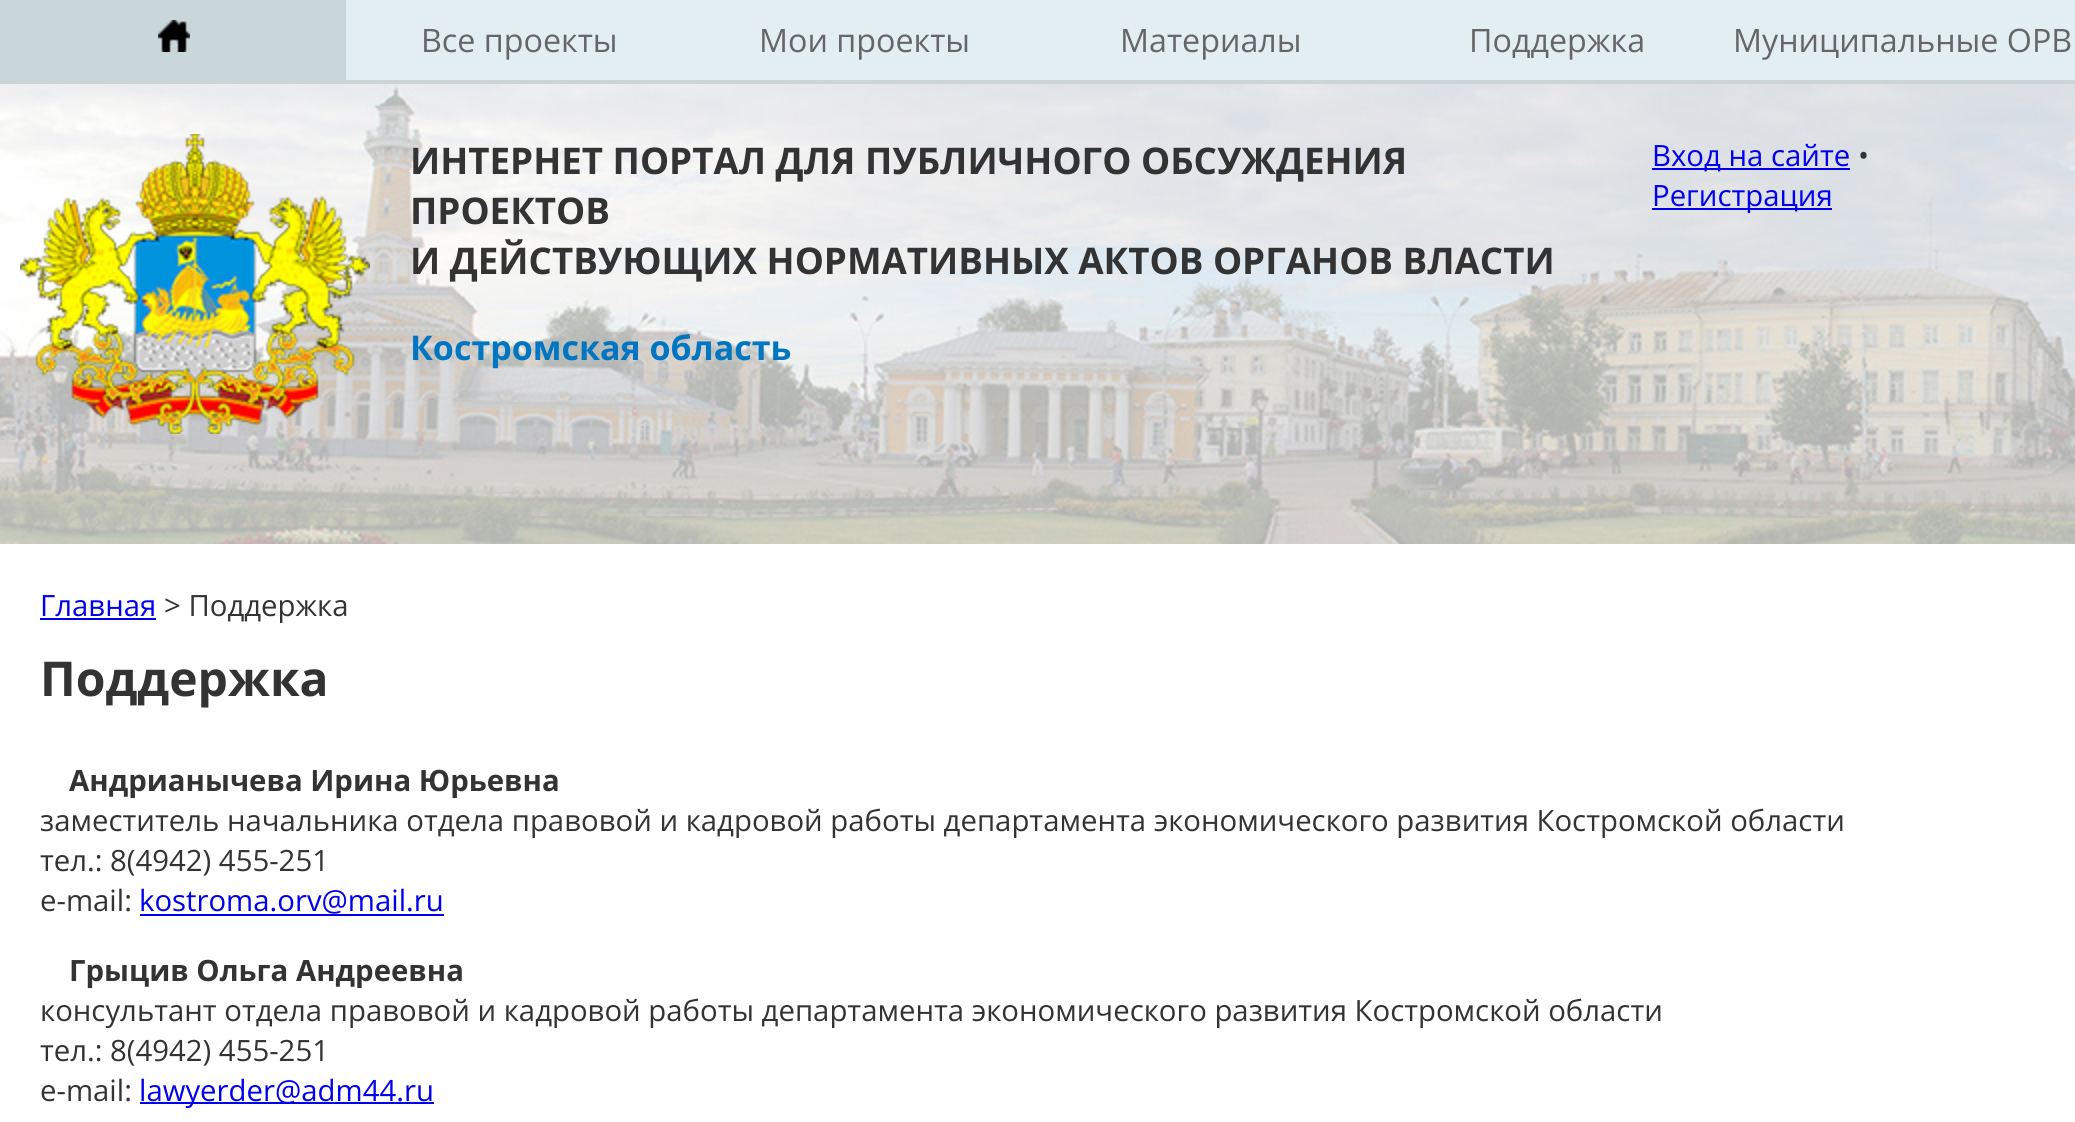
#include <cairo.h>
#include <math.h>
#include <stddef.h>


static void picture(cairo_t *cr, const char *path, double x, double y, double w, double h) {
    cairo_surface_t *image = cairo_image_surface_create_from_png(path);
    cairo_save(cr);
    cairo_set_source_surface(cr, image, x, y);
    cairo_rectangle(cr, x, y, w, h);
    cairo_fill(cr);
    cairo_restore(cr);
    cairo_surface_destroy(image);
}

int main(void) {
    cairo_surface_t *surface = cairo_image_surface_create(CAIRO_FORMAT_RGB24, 2075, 1122);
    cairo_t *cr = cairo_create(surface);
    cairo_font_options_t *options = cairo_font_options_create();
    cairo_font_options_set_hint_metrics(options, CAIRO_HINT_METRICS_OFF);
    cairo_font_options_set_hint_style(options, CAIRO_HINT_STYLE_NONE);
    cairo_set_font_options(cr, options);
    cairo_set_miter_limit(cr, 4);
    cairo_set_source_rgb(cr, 1, 1, 1);
    cairo_paint(cr);
    cairo_set_source_rgb(cr, 0.89, 0.933, 0.953);
    cairo_rectangle(cr, 346, 0, 1729, 80);
    cairo_fill(cr);
    cairo_set_source_rgb(cr, 0.796, 0.831, 0.843);
    cairo_rectangle(cr, 0, 80, 2075, 4);
    cairo_fill(cr);
    cairo_set_source_rgb(cr, 0.792, 0.843, 0.855);
    cairo_rectangle(cr, 0, 0, 346, 80);
    cairo_fill(cr);
    picture(cr, "img1.png", 158, 20, 32, 32);
    cairo_select_font_face(cr, "Open Sans", CAIRO_FONT_SLANT_NORMAL, CAIRO_FONT_WEIGHT_NORMAL);
    cairo_set_font_size(cr, 32.25);
    cairo_set_source_rgb(cr, 0.4, 0.4, 0.4);
    cairo_move_to(cr, 421, 52);
    cairo_show_text(cr, "Все проекты");
    cairo_move_to(cr, 759, 52);
    cairo_show_text(cr, "Мои проекты");
    cairo_move_to(cr, 1120, 52);
    cairo_show_text(cr, "Материалы");
    cairo_move_to(cr, 1469, 52);
    cairo_show_text(cr, "Поддержка");
    cairo_move_to(cr, 1733, 52);
    cairo_show_text(cr, "Муниципальные ОРВ");
    picture(cr, "img2.png", 0, 84, 2075, 460);
    picture(cr, "img3.png", 20, 134, 350, 300);
    cairo_select_font_face(cr, "Open Sans", CAIRO_FONT_SLANT_NORMAL, CAIRO_FONT_WEIGHT_BOLD);
    cairo_set_font_size(cr, 36.7);
    cairo_set_source_rgb(cr, 0.2, 0.2, 0.2);
    cairo_move_to(cr, 410, 174);
    cairo_show_text(cr, "ИНТЕРНЕТ ПОРТАЛ ДЛЯ ПУБЛИЧНОГО ОБСУЖДЕНИЯ");
    cairo_move_to(cr, 410, 224);
    cairo_show_text(cr, "ПРОЕКТОВ");
    cairo_move_to(cr, 410, 274);
    cairo_show_text(cr, "И ДЕЙСТВУЮЩИХ НОРМАТИВНЫХ АКТОВ ОРГАНОВ ВЛАСТИ");
    cairo_set_font_size(cr, 34);
    cairo_set_source_rgb(cr, 0, 0.459, 0.761);
    cairo_move_to(cr, 410, 360);
    cairo_show_text(cr, "Костромская область");
    cairo_set_source_rgb(cr, 0, 0, 0.933);
    cairo_rectangle(cr, 1652, 168, 198, 2);
    cairo_fill(cr);
    cairo_select_font_face(cr, "Open Sans", CAIRO_FONT_SLANT_NORMAL, CAIRO_FONT_WEIGHT_NORMAL);
    cairo_set_font_size(cr, 29.33);
    cairo_move_to(cr, 1652, 166);
    cairo_show_text(cr, "Вход на сайте");
    cairo_set_source_rgb(cr, 0.2, 0.2, 0.2);
    cairo_move_to(cr, 1858, 166);
    cairo_show_text(cr, "•");
    cairo_set_source_rgb(cr, 0, 0, 0.933);
    cairo_rectangle(cr, 1652, 208, 180, 2);
    cairo_fill(cr);
    cairo_move_to(cr, 1652, 206);
    cairo_show_text(cr, "Регистрация");
    cairo_move_to(cr, 40, 616);
    cairo_show_text(cr, "Главная");
    cairo_rectangle(cr, 40, 618, 116, 2);
    cairo_fill(cr);
    cairo_set_source_rgb(cr, 0.2, 0.2, 0.2);
    cairo_move_to(cr, 164, 616);
    cairo_show_text(cr, "> Поддержка");
    cairo_select_font_face(cr, "Open Sans", CAIRO_FONT_SLANT_NORMAL, CAIRO_FONT_WEIGHT_BOLD);
    cairo_set_font_size(cr, 48);
    cairo_move_to(cr, 40, 696);
    cairo_show_text(cr, "Поддержка");
    cairo_set_font_size(cr, 29.33);
    cairo_move_to(cr, 69, 791);
    cairo_show_text(cr, "Андрианычева Ирина Юрьевна");
    cairo_select_font_face(cr, "Open Sans", CAIRO_FONT_SLANT_NORMAL, CAIRO_FONT_WEIGHT_NORMAL);
    cairo_move_to(cr, 40, 831);
    cairo_show_text(cr, "заместитель начальника отдела правовой и кадровой работы департамента экономического развития Костромской области");
    cairo_move_to(cr, 40, 871);
    cairo_show_text(cr, "тел.: 8(4942) 455-251");
    cairo_move_to(cr, 40, 911);
    cairo_show_text(cr, "e-mail:");
    cairo_set_source_rgb(cr, 0, 0, 0.933);
    cairo_move_to(cr, 139, 911);
    cairo_show_text(cr, "kostroma.orv@mail.ru");
    cairo_rectangle(cr, 140, 914, 304, 2);
    cairo_fill(cr);
    cairo_select_font_face(cr, "Open Sans", CAIRO_FONT_SLANT_NORMAL, CAIRO_FONT_WEIGHT_BOLD);
    cairo_set_source_rgb(cr, 0.2, 0.2, 0.2);
    cairo_move_to(cr, 69, 981);
    cairo_show_text(cr, "Грыцив Ольга Андреевна");
    cairo_select_font_face(cr, "Open Sans", CAIRO_FONT_SLANT_NORMAL, CAIRO_FONT_WEIGHT_NORMAL);
    cairo_move_to(cr, 40, 1021);
    cairo_show_text(cr, "консультант отдела правовой и кадровой работы департамента экономического развития Костромской области");
    cairo_move_to(cr, 40, 1061);
    cairo_show_text(cr, "тел.: 8(4942) 455-251");
    cairo_move_to(cr, 40, 1101);
    cairo_show_text(cr, "e-mail:");
    cairo_set_source_rgb(cr, 0, 0, 0.933);
    cairo_rectangle(cr, 140, 1102, 294, 2);
    cairo_fill(cr);
    cairo_move_to(cr, 139, 1101);
    cairo_show_text(cr, "lawyerder@adm44.ru");
    cairo_surface_write_to_png(surface, "page.png");
    cairo_font_options_destroy(options);
    cairo_destroy(cr);
    cairo_surface_destroy(surface);
    return 0;
}
